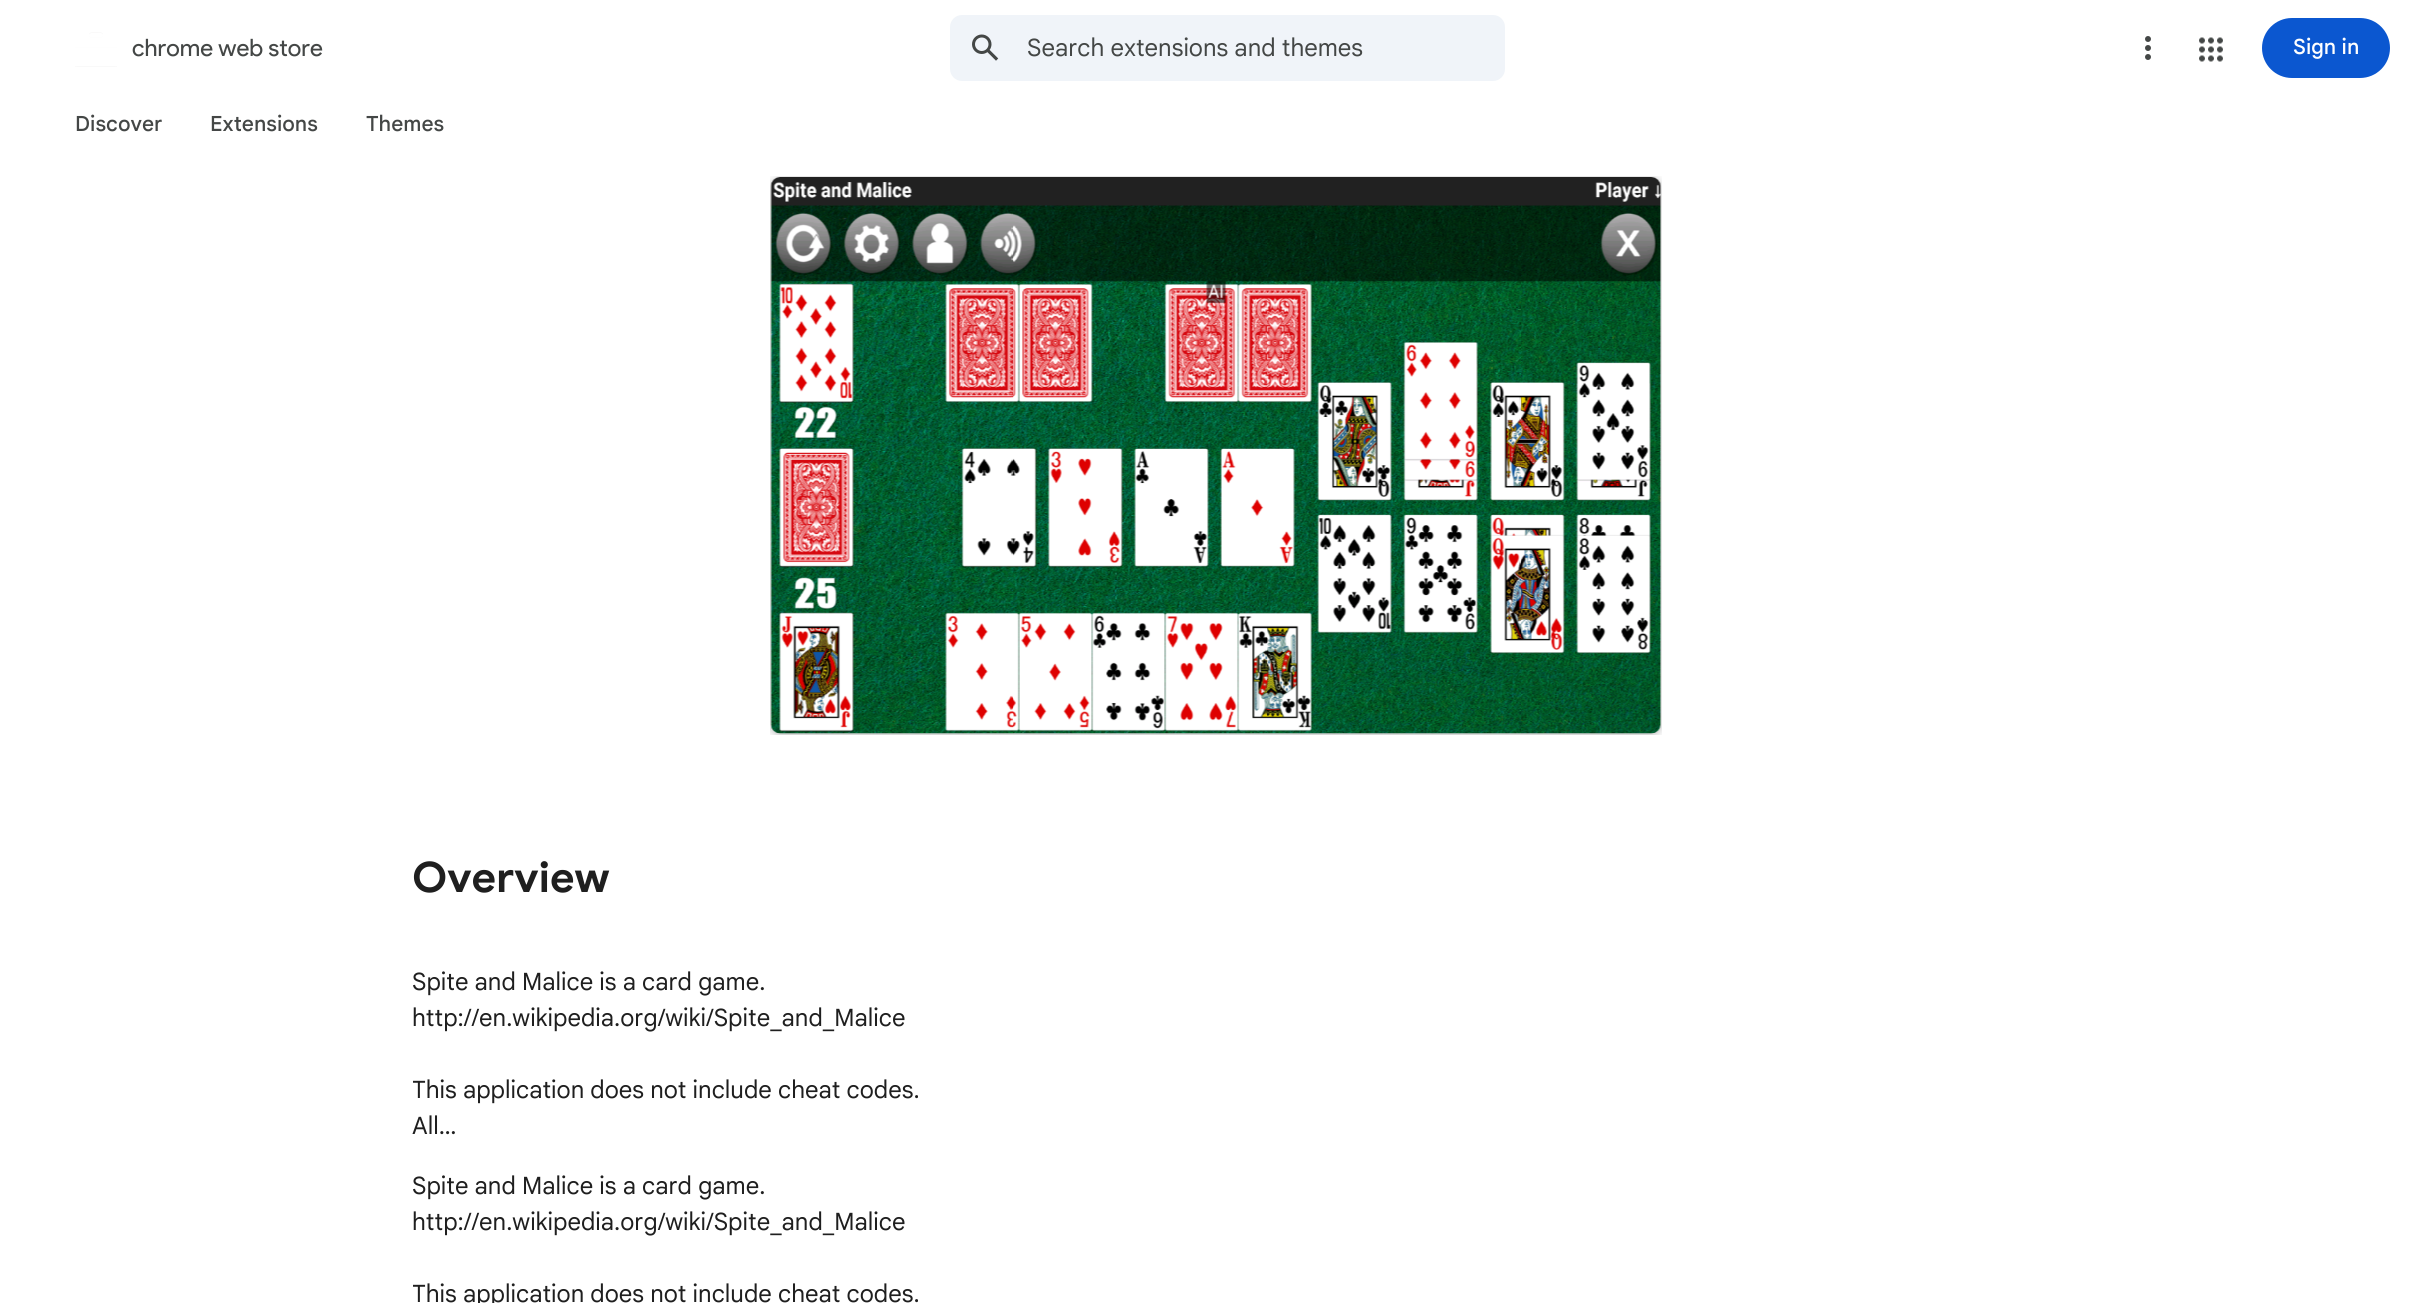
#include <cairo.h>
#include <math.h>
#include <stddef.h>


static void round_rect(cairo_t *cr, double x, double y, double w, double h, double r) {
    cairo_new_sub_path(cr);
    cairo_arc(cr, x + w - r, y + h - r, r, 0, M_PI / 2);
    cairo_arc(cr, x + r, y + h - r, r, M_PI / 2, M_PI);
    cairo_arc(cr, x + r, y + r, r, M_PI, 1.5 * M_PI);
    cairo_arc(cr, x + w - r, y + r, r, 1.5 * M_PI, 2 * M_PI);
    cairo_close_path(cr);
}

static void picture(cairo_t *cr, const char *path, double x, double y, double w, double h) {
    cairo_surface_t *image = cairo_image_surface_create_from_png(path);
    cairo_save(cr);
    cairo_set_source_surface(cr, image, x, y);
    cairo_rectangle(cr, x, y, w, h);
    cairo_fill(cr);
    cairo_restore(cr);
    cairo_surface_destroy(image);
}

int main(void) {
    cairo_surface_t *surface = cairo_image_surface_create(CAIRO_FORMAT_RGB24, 2431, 1303);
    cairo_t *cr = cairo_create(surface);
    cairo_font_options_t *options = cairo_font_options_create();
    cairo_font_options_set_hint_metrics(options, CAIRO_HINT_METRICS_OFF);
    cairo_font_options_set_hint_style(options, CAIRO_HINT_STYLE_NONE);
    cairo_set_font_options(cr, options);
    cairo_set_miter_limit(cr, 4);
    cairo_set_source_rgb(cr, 1, 1, 1);
    cairo_paint(cr);
    picture(cr, "img1.png", 75, 32, 42, 35);
    cairo_select_font_face(cr, "Product Sans", CAIRO_FONT_SLANT_NORMAL, CAIRO_FONT_WEIGHT_NORMAL);
    cairo_set_font_size(cr, 24);
    cairo_set_source_rgb(cr, 0.267, 0.278, 0.275);
    cairo_move_to(cr, 132, 56);
    cairo_show_text(cr, "chrome web store");
    cairo_set_source_rgb(cr, 0.941, 0.957, 0.976);
    round_rect(cr, 950, 15, 555, 66, 12);
    cairo_fill(cr);
    picture(cr, "img2.png", 972, 34, 27, 27);
    cairo_select_font_face(cr, "Google Sans", CAIRO_FONT_SLANT_NORMAL, CAIRO_FONT_WEIGHT_NORMAL);
    cairo_set_source_rgb(cr, 0.267, 0.278, 0.275);
    cairo_move_to(cr, 1027, 56);
    cairo_show_text(cr, "Search extensions and themes");
    picture(cr, "img3.png", 2145, 36, 6, 24);
    picture(cr, "img4.png", 2199, 37, 24, 25);
    cairo_set_source_rgb(cr, 0.043, 0.341, 0.816);
    round_rect(cr, 2262, 18, 128, 60, 30);
    cairo_fill(cr);
    cairo_select_font_face(cr, "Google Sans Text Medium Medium", CAIRO_FONT_SLANT_NORMAL, CAIRO_FONT_WEIGHT_NORMAL);
    cairo_set_font_size(cr, 21);
    cairo_set_source_rgb(cr, 1, 1, 1);
    cairo_move_to(cr, 2293, 54);
    cairo_show_text(cr, "Sign in");
    cairo_set_source_rgb(cr, 0.267, 0.278, 0.275);
    cairo_move_to(cr, 75, 131);
    cairo_show_text(cr, "Discover");
    cairo_move_to(cr, 210, 131);
    cairo_show_text(cr, "Extensions");
    cairo_move_to(cr, 366, 131);
    cairo_show_text(cr, "Themes");
    picture(cr, "img5.png", 770, 176, 892, 559);
    cairo_select_font_face(cr, "Google Sans", CAIRO_FONT_SLANT_NORMAL, CAIRO_FONT_WEIGHT_BOLD);
    cairo_set_font_size(cr, 42);
    cairo_set_source_rgb(cr, 0.122, 0.122, 0.122);
    cairo_move_to(cr, 412, 892);
    cairo_show_text(cr, "Overview");
    cairo_select_font_face(cr, "Google Sans", CAIRO_FONT_SLANT_NORMAL, CAIRO_FONT_WEIGHT_NORMAL);
    cairo_set_font_size(cr, 24);
    cairo_move_to(cr, 412, 990);
    cairo_show_text(cr, "Spite and Malice is a card game.");
    cairo_move_to(cr, 412, 1026);
    cairo_show_text(cr, "http://en.wikipedia.org/wiki/Spite_and_Malice");
    cairo_save(cr);
    cairo_rectangle(cr, 413, 941, 1608, 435);
    cairo_clip(cr);
    cairo_move_to(cr, 412, 1098);
    cairo_show_text(cr, "This application does not include cheat codes.");
    cairo_restore(cr);
    cairo_move_to(cr, 412, 1134);
    cairo_show_text(cr, "All…");
    cairo_move_to(cr, 412, 1194);
    cairo_show_text(cr, "Spite and Malice is a card game.");
    cairo_move_to(cr, 412, 1230);
    cairo_show_text(cr, "http://en.wikipedia.org/wiki/Spite_and_Malice");
    cairo_save(cr);
    cairo_rectangle(cr, 413, 941, 1608, 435);
    cairo_clip(cr);
    cairo_move_to(cr, 412, 1302);
    cairo_show_text(cr, "This application does not include cheat codes.");
    cairo_restore(cr);
    cairo_surface_write_to_png(surface, "page.png");
    cairo_font_options_destroy(options);
    cairo_destroy(cr);
    cairo_surface_destroy(surface);
    return 0;
}
